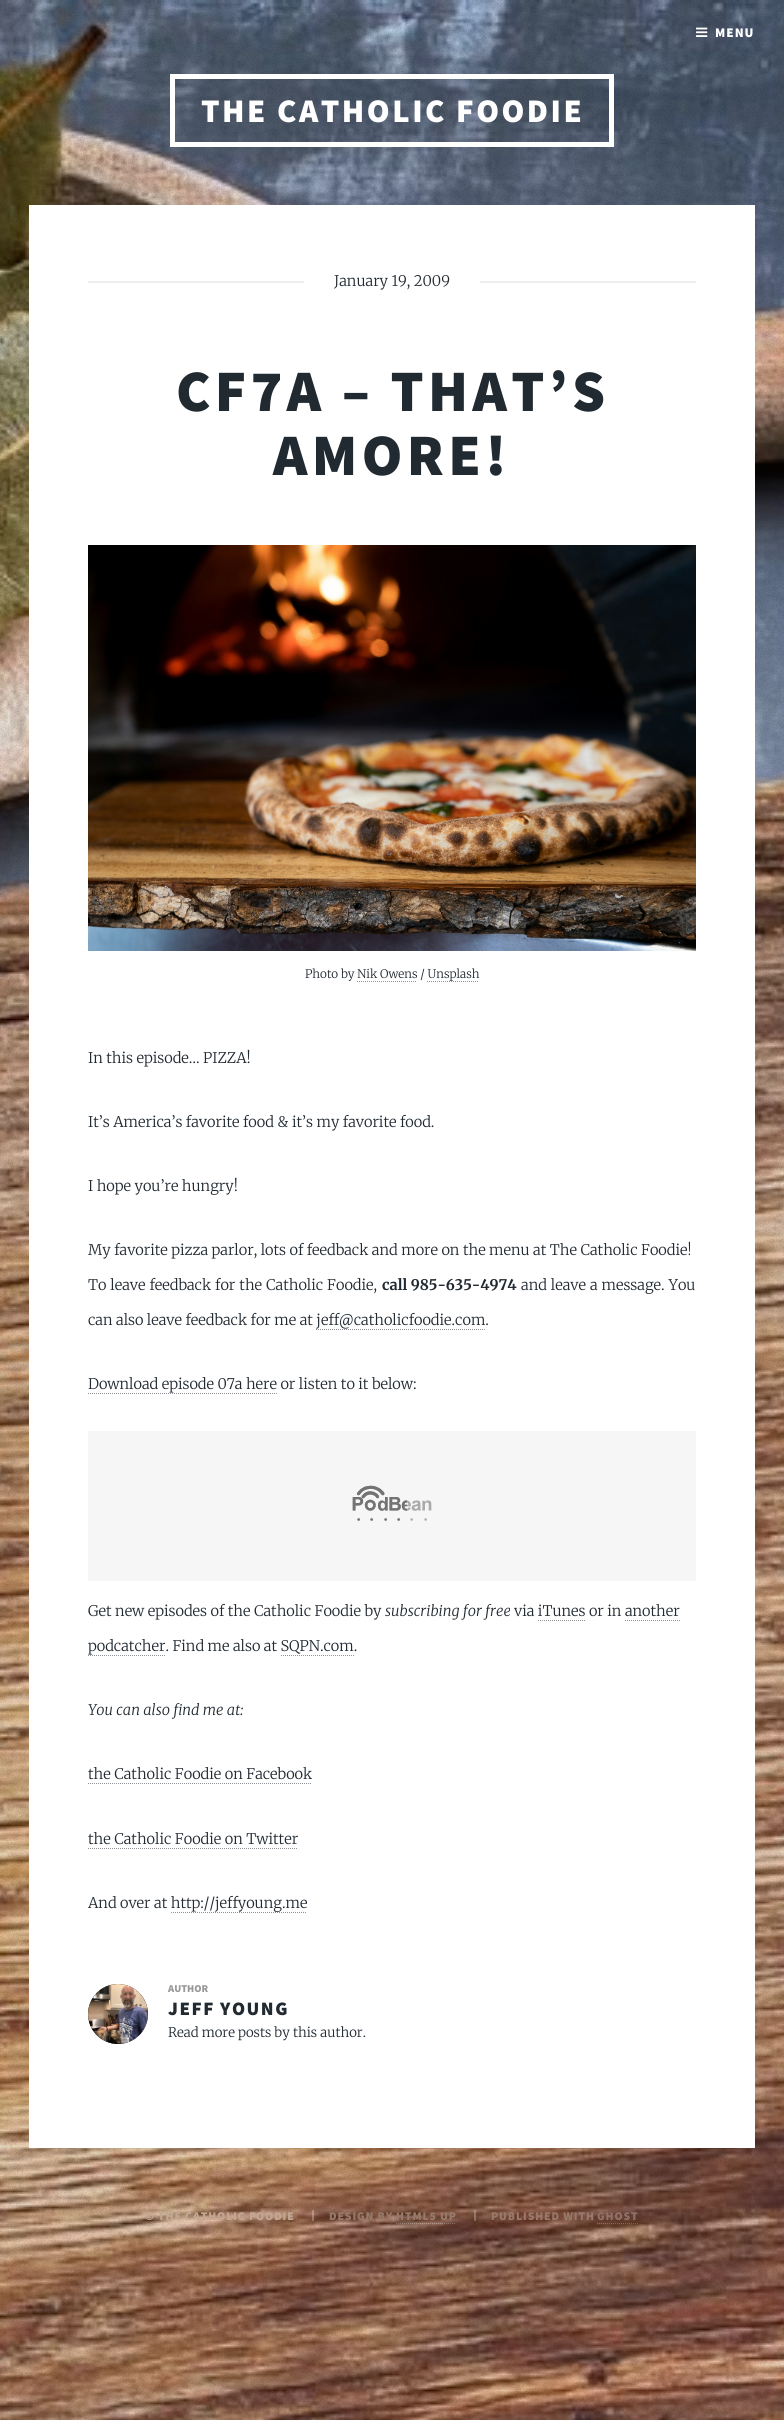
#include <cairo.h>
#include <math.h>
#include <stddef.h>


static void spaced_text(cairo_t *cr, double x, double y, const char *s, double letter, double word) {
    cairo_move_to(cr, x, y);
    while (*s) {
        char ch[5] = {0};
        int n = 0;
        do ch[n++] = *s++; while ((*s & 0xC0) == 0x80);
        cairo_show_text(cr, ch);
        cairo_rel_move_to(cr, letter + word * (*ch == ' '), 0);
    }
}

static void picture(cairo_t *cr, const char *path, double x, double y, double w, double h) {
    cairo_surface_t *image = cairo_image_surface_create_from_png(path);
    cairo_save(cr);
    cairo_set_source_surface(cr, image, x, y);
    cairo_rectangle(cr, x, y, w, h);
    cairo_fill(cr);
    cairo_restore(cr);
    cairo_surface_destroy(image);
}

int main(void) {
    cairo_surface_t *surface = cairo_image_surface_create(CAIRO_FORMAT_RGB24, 784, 2420);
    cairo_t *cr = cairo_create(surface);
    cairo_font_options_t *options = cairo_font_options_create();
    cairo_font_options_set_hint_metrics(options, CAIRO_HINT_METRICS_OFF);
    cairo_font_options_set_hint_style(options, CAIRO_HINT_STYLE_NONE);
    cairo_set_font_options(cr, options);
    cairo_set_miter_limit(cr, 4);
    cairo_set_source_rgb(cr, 1, 1, 1);
    cairo_paint(cr);
    picture(cr, "img1.png", 0, 0, 784, 2420);
    picture(cr, "img2.png", 696, 27, 12, 10);
    cairo_select_font_face(cr, "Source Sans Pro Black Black", CAIRO_FONT_SLANT_NORMAL, CAIRO_FONT_WEIGHT_NORMAL);
    cairo_set_font_size(cr, 13.25);
    cairo_set_source_rgb(cr, 1, 1, 1);
    spaced_text(cr, 715, 37, "MENU", 1, 0);
    cairo_rectangle(cr, 172.5, 76.5, 439, 68);
    cairo_set_line_width(cr, 5);
    cairo_stroke(cr);
    cairo_set_font_size(cr, 33);
    spaced_text(cr, 201, 122, "THE CATHOLIC FOODIE", 2.5, 0);
    cairo_rectangle(cr, 29, 205, 726, 1943);
    cairo_fill(cr);
    cairo_set_source_rgb(cr, 0.933, 0.933, 0.933);
    cairo_rectangle(cr, 88, 281, 216, 2);
    cairo_fill(cr);
    cairo_select_font_face(cr, "Merriweather Light", CAIRO_FONT_SLANT_NORMAL, CAIRO_FONT_WEIGHT_NORMAL);
    cairo_set_font_size(cr, 14.65);
    cairo_set_source_rgb(cr, 0.129, 0.161, 0.192);
    cairo_move_to(cr, 334, 286);
    cairo_show_text(cr, "January 19, 2009");
    cairo_set_source_rgb(cr, 0.933, 0.933, 0.933);
    cairo_rectangle(cr, 480, 281, 216, 2);
    cairo_fill(cr);
    cairo_select_font_face(cr, "Source Sans Pro Black Black", CAIRO_FONT_SLANT_NORMAL, CAIRO_FONT_WEIGHT_NORMAL);
    cairo_set_font_size(cr, 58.75);
    cairo_set_source_rgb(cr, 0.129, 0.161, 0.192);
    spaced_text(cr, 176, 411, "CF7A – THAT’S", 4.4, 0);
    spaced_text(cr, 273, 475, "AMORE!", 4.4, 0);
    picture(cr, "img3.png", 88, 545, 608, 406);
    cairo_select_font_face(cr, "Merriweather Light", CAIRO_FONT_SLANT_NORMAL, CAIRO_FONT_WEIGHT_NORMAL);
    cairo_set_font_size(cr, 11.75);
    cairo_move_to(cr, 305, 978);
    cairo_show_text(cr, "Photo by Nik Owens / Unsplash");
    cairo_new_path(cr);
    cairo_move_to(cr, 357, 981.5);
    cairo_line_to(cr, 417, 981.5);
    cairo_set_source_rgb(cr, 0.565, 0.58, 0.596);
    cairo_set_line_width(cr, 1);
    cairo_set_dash(cr, (double[]){1, 1}, 2, 0);
    cairo_stroke(cr);
    cairo_new_path(cr);
    cairo_move_to(cr, 427, 981.5);
    cairo_line_to(cr, 479, 981.5);
    cairo_stroke(cr);
    cairo_set_font_size(cr, 14.65);
    cairo_set_source_rgb(cr, 0.129, 0.161, 0.192);
    cairo_move_to(cr, 88, 1063);
    cairo_show_text(cr, "In this episode… PIZZA!");
    cairo_move_to(cr, 88, 1127);
    cairo_show_text(cr, "It’s America’s favorite food & it’s my favorite food.");
    cairo_move_to(cr, 88, 1191);
    cairo_show_text(cr, "I hope you’re hungry!");
    cairo_move_to(cr, 88, 1255);
    cairo_show_text(cr, "My favorite pizza parlor, lots of feedback and more on the menu at The Catholic Foodie!");
    spaced_text(cr, 88, 1290, "To leave feedback for the Catholic Foodie,", 0, 0.5);
    cairo_select_font_face(cr, "Merriweather", CAIRO_FONT_SLANT_NORMAL, CAIRO_FONT_WEIGHT_BOLD);
    cairo_move_to(cr, 382, 1290);
    cairo_show_text(cr, "call 985-635-4974");
    cairo_select_font_face(cr, "Merriweather Light", CAIRO_FONT_SLANT_NORMAL, CAIRO_FONT_WEIGHT_NORMAL);
    spaced_text(cr, 521, 1290, "and leave a message. You", 0, 0.5);
    cairo_move_to(cr, 88, 1325);
    cairo_show_text(cr, "can also leave feedback for me at jeff@catholicfoodie.com.");
    cairo_new_path(cr);
    cairo_move_to(cr, 316, 1329.5);
    cairo_line_to(cr, 485, 1329.5);
    cairo_set_source_rgb(cr, 0.565, 0.58, 0.596);
    cairo_stroke(cr);
    cairo_set_source_rgb(cr, 0.129, 0.161, 0.192);
    cairo_move_to(cr, 88, 1389);
    cairo_show_text(cr, "Download episode 07a here or listen to it below:");
    cairo_new_path(cr);
    cairo_move_to(cr, 88, 1393.5);
    cairo_line_to(cr, 277, 1393.5);
    cairo_set_source_rgb(cr, 0.565, 0.58, 0.596);
    cairo_stroke(cr);
    picture(cr, "img4.png", 88, 1431, 608, 150);
    cairo_set_source_rgb(cr, 0.129, 0.161, 0.192);
    cairo_move_to(cr, 88, 1616);
    cairo_show_text(cr, "Get new episodes of the Catholic Foodie by");
    cairo_select_font_face(cr, "Merriweather Light", CAIRO_FONT_SLANT_ITALIC, CAIRO_FONT_WEIGHT_NORMAL);
    cairo_move_to(cr, 385, 1616);
    cairo_show_text(cr, "subscribing for free");
    cairo_select_font_face(cr, "Merriweather Light", CAIRO_FONT_SLANT_NORMAL, CAIRO_FONT_WEIGHT_NORMAL);
    cairo_move_to(cr, 514, 1616);
    cairo_show_text(cr, "via iTunes or in another");
    cairo_new_path(cr);
    cairo_move_to(cr, 538, 1620.5);
    cairo_line_to(cr, 586, 1620.5);
    cairo_set_source_rgb(cr, 0.565, 0.58, 0.596);
    cairo_stroke(cr);
    cairo_set_source_rgb(cr, 0.129, 0.161, 0.192);
    cairo_move_to(cr, 88, 1651);
    cairo_show_text(cr, "podcatcher. Find me also at SQPN.com.");
    cairo_new_path(cr);
    cairo_move_to(cr, 625, 1620.5);
    cairo_line_to(cr, 680, 1620.5);
    cairo_set_source_rgb(cr, 0.565, 0.58, 0.596);
    cairo_stroke(cr);
    cairo_new_path(cr);
    cairo_move_to(cr, 88, 1655.5);
    cairo_line_to(cr, 165, 1655.5);
    cairo_stroke(cr);
    cairo_new_path(cr);
    cairo_move_to(cr, 281, 1655.5);
    cairo_line_to(cr, 354, 1655.5);
    cairo_stroke(cr);
    cairo_select_font_face(cr, "Merriweather Light", CAIRO_FONT_SLANT_ITALIC, CAIRO_FONT_WEIGHT_NORMAL);
    cairo_set_source_rgb(cr, 0.129, 0.161, 0.192);
    cairo_move_to(cr, 88, 1715);
    cairo_show_text(cr, "You can also find me at:");
    cairo_select_font_face(cr, "Merriweather Light", CAIRO_FONT_SLANT_NORMAL, CAIRO_FONT_WEIGHT_NORMAL);
    cairo_move_to(cr, 88, 1779);
    cairo_show_text(cr, "the Catholic Foodie on Facebook");
    cairo_new_path(cr);
    cairo_move_to(cr, 88, 1783.5);
    cairo_line_to(cr, 312, 1783.5);
    cairo_set_source_rgb(cr, 0.565, 0.58, 0.596);
    cairo_stroke(cr);
    cairo_set_source_rgb(cr, 0.129, 0.161, 0.192);
    cairo_move_to(cr, 88, 1844);
    cairo_show_text(cr, "the Catholic Foodie on Twitter");
    cairo_new_path(cr);
    cairo_move_to(cr, 88, 1848.5);
    cairo_line_to(cr, 298, 1848.5);
    cairo_set_source_rgb(cr, 0.565, 0.58, 0.596);
    cairo_stroke(cr);
    cairo_set_source_rgb(cr, 0.129, 0.161, 0.192);
    cairo_move_to(cr, 88, 1908);
    cairo_show_text(cr, "And over at http://jeffyoung.me");
    cairo_new_path(cr);
    cairo_move_to(cr, 171, 1912.5);
    cairo_line_to(cr, 307, 1912.5);
    cairo_set_source_rgb(cr, 0.565, 0.58, 0.596);
    cairo_stroke(cr);
    cairo_set_source_rgb(cr, 0.133, 0.133, 0.133);
    cairo_arc(cr, 118, 2014, 30, 0, 2 * M_PI);
    cairo_fill(cr);
    picture(cr, "img5.png", 88, 1984, 60, 60);
    cairo_select_font_face(cr, "Source Sans Pro Black Black", CAIRO_FONT_SLANT_NORMAL, CAIRO_FONT_WEIGHT_NORMAL);
    cairo_set_font_size(cr, 10.5);
    cairo_set_source_rgb(cr, 0.6, 0.6, 0.6);
    cairo_move_to(cr, 168, 1992);
    cairo_show_text(cr, "AUTHOR");
    cairo_set_font_size(cr, 19);
    cairo_set_source_rgb(cr, 0.129, 0.161, 0.192);
    spaced_text(cr, 168, 2015, "JEFF YOUNG", 1.5, 0);
    cairo_select_font_face(cr, "Merriweather Light", CAIRO_FONT_SLANT_NORMAL, CAIRO_FONT_WEIGHT_NORMAL);
    cairo_set_font_size(cr, 13.25);
    cairo_move_to(cr, 168, 2037);
    cairo_show_text(cr, "Read more posts by this author.");
    cairo_select_font_face(cr, "Source Sans Pro Black Black", CAIRO_FONT_SLANT_NORMAL, CAIRO_FONT_WEIGHT_NORMAL);
    cairo_set_font_size(cr, 11.75);
    cairo_set_source_rgb(cr, 0.761, 0.655, 0.584);
    spaced_text(cr, 145, 2220, "© THE CATHOLIC FOODIE", 0.9, 0);
    cairo_set_source_rgba(cr, 1, 1, 1, 0.25);
    cairo_rectangle(cr, 312, 2210, 2, 11);
    cairo_fill(cr);
    cairo_set_source_rgb(cr, 0.596, 0.478, 0.427);
    spaced_text(cr, 329, 2220, "DESIGN BY", 0.9, 0);
    spaced_text(cr, 396, 2220, "HTML5 UP", 0.9, 0);
    cairo_new_path(cr);
    cairo_move_to(cr, 396, 2223.5);
    cairo_line_to(cr, 456, 2223.5);
    cairo_set_source_rgba(cr, 1, 1, 1, 0.25);
    cairo_stroke(cr);
    cairo_rectangle(cr, 474, 2210, 2, 11);
    cairo_fill(cr);
    cairo_set_source_rgb(cr, 0.596, 0.478, 0.427);
    spaced_text(cr, 491, 2220, "PUBLISHED WITH", 0.9, 0);
    cairo_set_source_rgb(cr, 0.561, 0.447, 0.408);
    spaced_text(cr, 597, 2220, "GHOST", 0.9, 0);
    cairo_new_path(cr);
    cairo_move_to(cr, 597, 2223.5);
    cairo_line_to(cr, 639, 2223.5);
    cairo_set_source_rgba(cr, 1, 1, 1, 0.25);
    cairo_stroke(cr);
    cairo_surface_write_to_png(surface, "page.png");
    cairo_font_options_destroy(options);
    cairo_destroy(cr);
    cairo_surface_destroy(surface);
    return 0;
}
